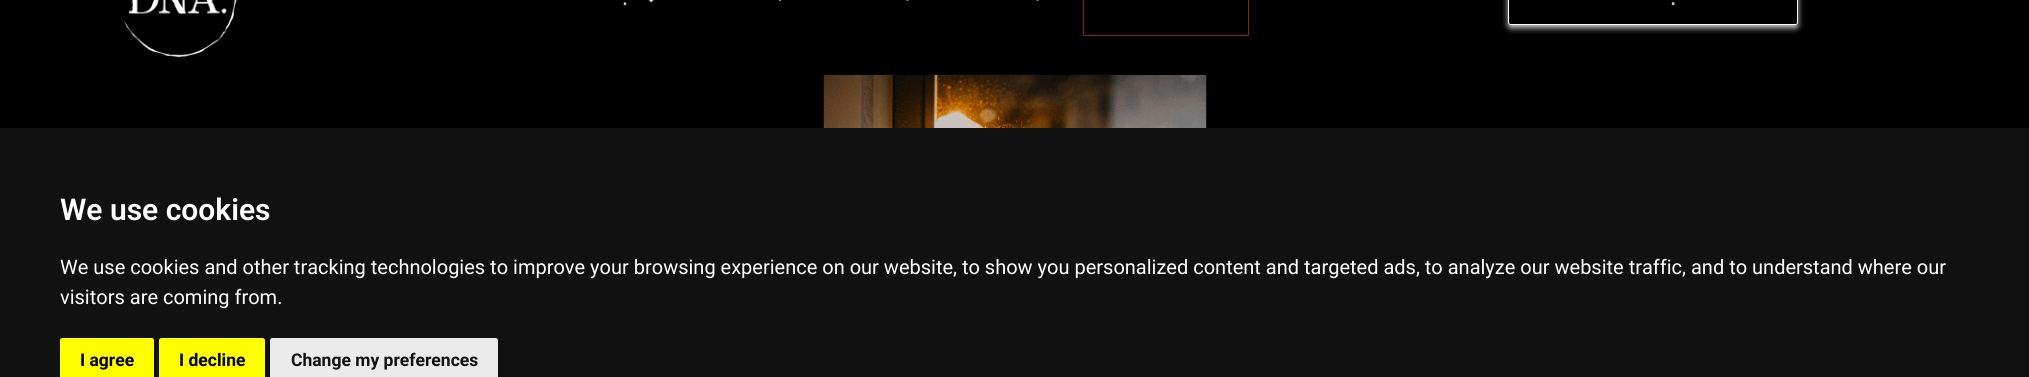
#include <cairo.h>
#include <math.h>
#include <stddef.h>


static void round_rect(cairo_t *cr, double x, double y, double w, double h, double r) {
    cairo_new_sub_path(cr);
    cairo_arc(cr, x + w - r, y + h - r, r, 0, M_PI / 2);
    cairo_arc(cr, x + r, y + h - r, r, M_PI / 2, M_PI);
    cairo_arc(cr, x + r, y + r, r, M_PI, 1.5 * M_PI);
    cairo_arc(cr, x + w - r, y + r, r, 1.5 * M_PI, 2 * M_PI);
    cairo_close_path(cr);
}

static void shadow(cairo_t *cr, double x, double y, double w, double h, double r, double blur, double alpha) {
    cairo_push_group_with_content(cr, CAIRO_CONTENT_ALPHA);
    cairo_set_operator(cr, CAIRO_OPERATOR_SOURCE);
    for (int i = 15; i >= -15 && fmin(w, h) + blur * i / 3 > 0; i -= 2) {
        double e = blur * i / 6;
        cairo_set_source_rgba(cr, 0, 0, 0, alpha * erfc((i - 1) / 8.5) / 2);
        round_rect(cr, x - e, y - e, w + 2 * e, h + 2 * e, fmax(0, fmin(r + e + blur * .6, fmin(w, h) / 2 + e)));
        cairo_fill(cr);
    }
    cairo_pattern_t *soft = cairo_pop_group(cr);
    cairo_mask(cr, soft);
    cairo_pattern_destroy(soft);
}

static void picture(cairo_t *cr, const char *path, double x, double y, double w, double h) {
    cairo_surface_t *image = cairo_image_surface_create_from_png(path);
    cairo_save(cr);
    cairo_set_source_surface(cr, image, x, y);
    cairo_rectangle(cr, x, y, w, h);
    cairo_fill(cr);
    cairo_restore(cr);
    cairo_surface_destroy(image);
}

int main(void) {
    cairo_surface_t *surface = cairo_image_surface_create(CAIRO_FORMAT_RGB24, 2029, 377);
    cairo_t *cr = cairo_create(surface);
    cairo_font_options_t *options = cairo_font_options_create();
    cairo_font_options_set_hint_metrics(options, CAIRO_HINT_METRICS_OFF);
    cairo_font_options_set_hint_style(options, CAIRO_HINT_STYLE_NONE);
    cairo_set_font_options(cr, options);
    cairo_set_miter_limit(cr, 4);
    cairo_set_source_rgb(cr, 0, 0, 0);
    cairo_paint(cr);
    picture(cr, "img1.png", 124, 0, 113, 58);
    picture(cr, "img2.png", 779, 0, 2, 1);
    picture(cr, "img3.png", 906, 0, 3, 1);
    picture(cr, "img4.png", 1036, 0, 3, 1);
    round_rect(cr, 1083.5, -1.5, 165, 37, 0.5);
    cairo_set_source_rgb(cr, 0.514, 0.125, 0.125);
    cairo_set_line_width(cr, 1);
    cairo_stroke(cr);
    picture(cr, "img5.png", 648, 0, 6, 3);
    cairo_select_font_face(cr, "Droid Serif", CAIRO_FONT_SLANT_NORMAL, CAIRO_FONT_WEIGHT_NORMAL);
    cairo_set_font_size(cr, 21);
    cairo_set_source_rgb(cr, 0.808, 0.808, 0.808);
    cairo_move_to(cr, 622, 5);
    cairo_show_text(cr, ".");
    cairo_save(cr);
    cairo_set_fill_rule(cr, CAIRO_FILL_RULE_EVEN_ODD);
    cairo_new_path(cr);
    cairo_move_to(cr, 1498, 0);
    cairo_line_to(cr, 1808, 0);
    cairo_line_to(cr, 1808, 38);
    cairo_line_to(cr, 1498, 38);
    cairo_close_path(cr);
    cairo_move_to(cr, 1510.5, -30);
    cairo_line_to(cr, 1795.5, -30);
    cairo_curve_to(cr, 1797, -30, 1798, -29, 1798, -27.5);
    cairo_line_to(cr, 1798, 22.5);
    cairo_curve_to(cr, 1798, 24, 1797, 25, 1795.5, 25);
    cairo_line_to(cr, 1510.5, 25);
    cairo_curve_to(cr, 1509, 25, 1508, 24, 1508, 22.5);
    cairo_line_to(cr, 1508, -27.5);
    cairo_curve_to(cr, 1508, -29, 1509, -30, 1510.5, -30);
    cairo_close_path(cr);
    cairo_clip(cr);
    cairo_set_source_rgb(cr, 0.808, 0.808, 0.808);
    shadow(cr, 1508, -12, 290, 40, 2.5, 3, 1);
    cairo_restore(cr);
    round_rect(cr, 1508.5, -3.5, 289, 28, 2);
    cairo_set_source_rgb(cr, 1, 1, 1);
    cairo_stroke(cr);
    cairo_set_font_size(cr, 22);
    cairo_set_source_rgb(cr, 0.808, 0.808, 0.808);
    cairo_move_to(cr, 1670, 5);
    cairo_show_text(cr, ".");
    picture(cr, "img6.png", 823, 75, 384, 53);
    cairo_set_source_rgb(cr, 0.067, 0.067, 0.067);
    cairo_rectangle(cr, 0, 128, 2029, 249);
    cairo_fill(cr);
    cairo_select_font_face(cr, "Roboto SemiBold", CAIRO_FONT_SLANT_NORMAL, CAIRO_FONT_WEIGHT_NORMAL);
    cairo_set_font_size(cr, 30);
    cairo_set_source_rgb(cr, 1, 1, 1);
    cairo_move_to(cr, 60, 220);
    cairo_show_text(cr, "We use cookies");
    cairo_select_font_face(cr, "Roboto", CAIRO_FONT_SLANT_NORMAL, CAIRO_FONT_WEIGHT_NORMAL);
    cairo_set_font_size(cr, 20);
    cairo_move_to(cr, 60, 274);
    cairo_show_text(cr, "We use cookies and other tracking technologies to improve your browsing experience on our website, to show you personalized content and targeted ads, to analyze our website traffic, and to understand where our");
    cairo_move_to(cr, 60, 304);
    cairo_show_text(cr, "visitors are coming from.");
    cairo_set_source_rgb(cr, 1, 1, 0);
    cairo_new_path(cr);
    cairo_move_to(cr, 62.5, 338);
    cairo_line_to(cr, 151.5, 338);
    cairo_curve_to(cr, 153, 338, 154, 339, 154, 340.5);
    cairo_line_to(cr, 154, 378);
    cairo_line_to(cr, 60, 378);
    cairo_line_to(cr, 60, 340.5);
    cairo_curve_to(cr, 60, 339, 61, 338, 62.5, 338);
    cairo_close_path(cr);
    cairo_fill(cr);
    cairo_select_font_face(cr, "Roboto", CAIRO_FONT_SLANT_NORMAL, CAIRO_FONT_WEIGHT_BOLD);
    cairo_set_font_size(cr, 17.5);
    cairo_set_source_rgb(cr, 0, 0, 0);
    cairo_move_to(cr, 80, 366);
    cairo_show_text(cr, "I agree");
    cairo_set_source_rgb(cr, 1, 1, 0);
    cairo_new_path(cr);
    cairo_move_to(cr, 161.5, 338);
    cairo_line_to(cr, 262.5, 338);
    cairo_curve_to(cr, 264, 338, 265, 339, 265, 340.5);
    cairo_line_to(cr, 265, 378);
    cairo_line_to(cr, 159, 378);
    cairo_line_to(cr, 159, 340.5);
    cairo_curve_to(cr, 159, 339, 160, 338, 161.5, 338);
    cairo_close_path(cr);
    cairo_fill(cr);
    cairo_set_source_rgb(cr, 0, 0, 0);
    cairo_move_to(cr, 179, 366);
    cairo_show_text(cr, "I decline");
    cairo_set_source_rgb(cr, 0.918, 0.918, 0.918);
    cairo_new_path(cr);
    cairo_move_to(cr, 272.5, 338);
    cairo_line_to(cr, 495.5, 338);
    cairo_curve_to(cr, 497, 338, 498, 339, 498, 340.5);
    cairo_line_to(cr, 498, 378);
    cairo_line_to(cr, 270, 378);
    cairo_line_to(cr, 270, 340.5);
    cairo_curve_to(cr, 270, 339, 271, 338, 272.5, 338);
    cairo_close_path(cr);
    cairo_fill(cr);
    cairo_set_source_rgb(cr, 0.067, 0.067, 0.067);
    cairo_move_to(cr, 291, 366);
    cairo_show_text(cr, "Change my preferences");
    cairo_surface_write_to_png(surface, "page.png");
    cairo_font_options_destroy(options);
    cairo_destroy(cr);
    cairo_surface_destroy(surface);
    return 0;
}
